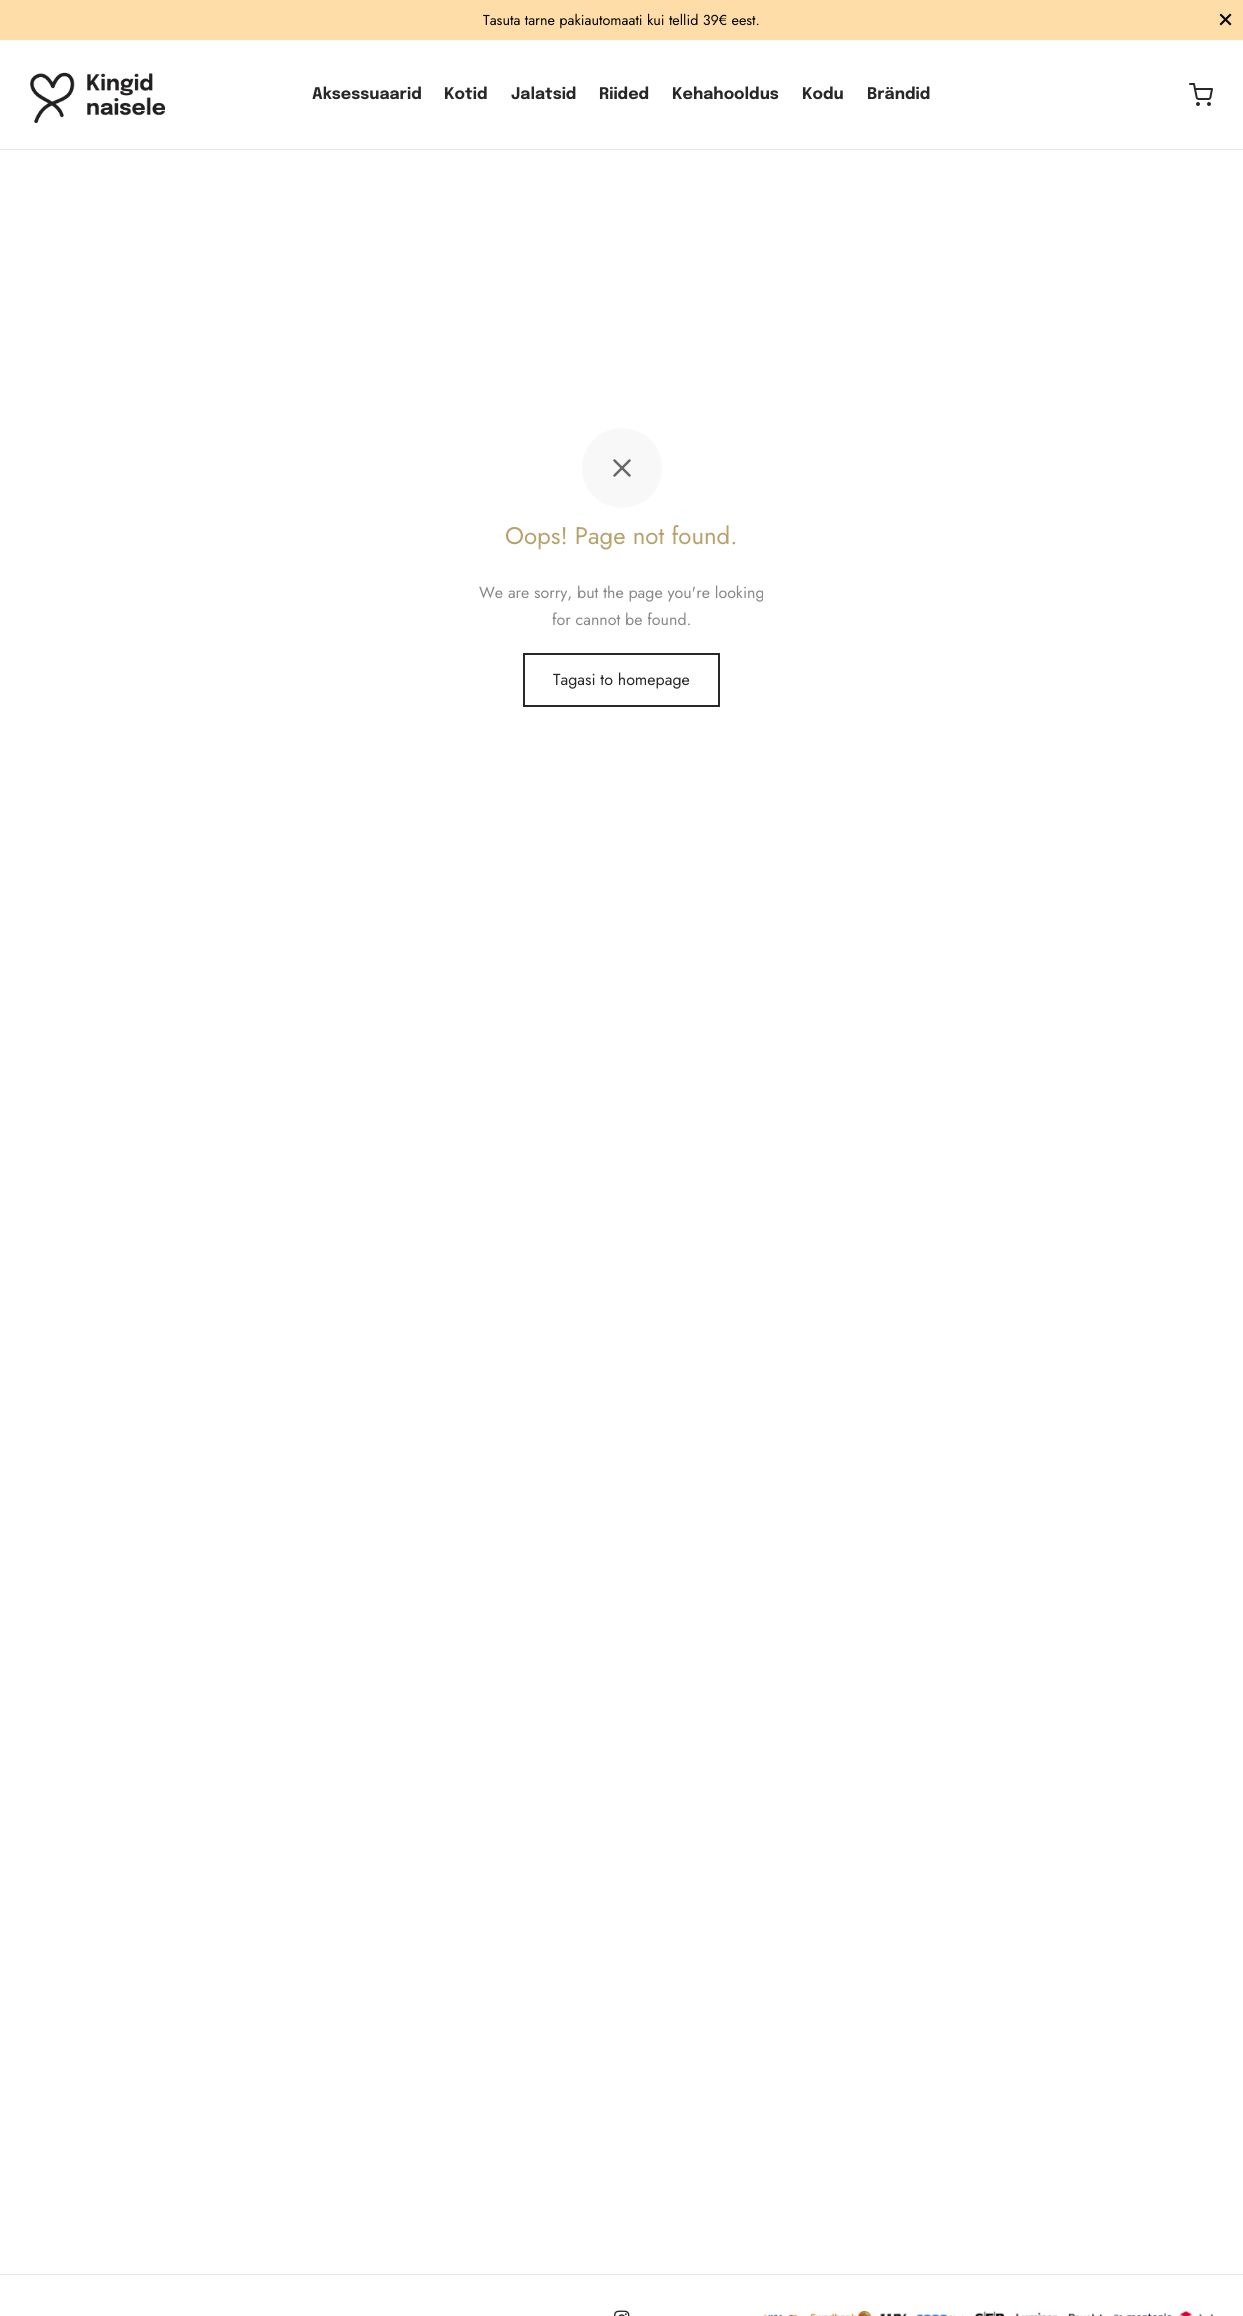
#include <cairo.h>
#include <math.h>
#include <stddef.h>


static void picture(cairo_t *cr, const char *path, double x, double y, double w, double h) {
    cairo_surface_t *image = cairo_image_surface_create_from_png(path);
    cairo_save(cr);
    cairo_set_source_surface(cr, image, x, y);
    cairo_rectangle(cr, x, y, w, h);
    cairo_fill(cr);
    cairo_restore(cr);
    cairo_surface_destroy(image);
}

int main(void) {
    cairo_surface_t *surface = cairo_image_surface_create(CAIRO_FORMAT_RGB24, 1243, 2316);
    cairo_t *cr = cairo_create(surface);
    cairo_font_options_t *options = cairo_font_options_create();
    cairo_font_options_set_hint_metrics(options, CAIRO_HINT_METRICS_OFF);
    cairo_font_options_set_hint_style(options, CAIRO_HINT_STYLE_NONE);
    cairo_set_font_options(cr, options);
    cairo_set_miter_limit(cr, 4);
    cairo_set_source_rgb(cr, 1, 1, 1);
    cairo_paint(cr);
    cairo_set_source_rgb(cr, 1, 0.867, 0.659);
    cairo_rectangle(cr, 0, 0, 1243, 40);
    cairo_fill(cr);
    cairo_select_font_face(cr, "Jost", CAIRO_FONT_SLANT_NORMAL, CAIRO_FONT_WEIGHT_NORMAL);
    cairo_set_font_size(cr, 14.4);
    cairo_set_source_rgb(cr, 0.02, 0.02, 0.02);
    cairo_move_to(cr, 483, 25);
    cairo_show_text(cr, "Tasuta tarne pakiautomaati kui tellid 39€ eest.");
    cairo_new_path(cr);
    cairo_move_to(cr, 1221, 13.5);
    cairo_line_to(cr, 1231.5, 24);
    cairo_line_to(cr, 1230, 25.5);
    cairo_line_to(cr, 1219.5, 15);
    cairo_close_path(cr);
    cairo_fill(cr);
    cairo_new_path(cr);
    cairo_move_to(cr, 1219.5, 24);
    cairo_line_to(cr, 1230, 13.5);
    cairo_line_to(cr, 1231.5, 15);
    cairo_line_to(cr, 1221, 25.5);
    cairo_close_path(cr);
    cairo_fill(cr);
    picture(cr, "img1.png", 30, 72, 135, 51);
    cairo_select_font_face(cr, "Epilogue", CAIRO_FONT_SLANT_NORMAL, CAIRO_FONT_WEIGHT_BOLD);
    cairo_set_font_size(cr, 16);
    cairo_set_source_rgb(cr, 0.157, 0.157, 0.157);
    cairo_move_to(cr, 312, 99);
    cairo_show_text(cr, "Aksessuaarid");
    cairo_move_to(cr, 444, 99);
    cairo_show_text(cr, "Kotid");
    cairo_move_to(cr, 511, 99);
    cairo_show_text(cr, "Jalatsid");
    cairo_move_to(cr, 599, 99);
    cairo_show_text(cr, "Riided");
    cairo_move_to(cr, 672, 99);
    cairo_show_text(cr, "Kehahooldus");
    cairo_move_to(cr, 802, 99);
    cairo_show_text(cr, "Kodu");
    cairo_move_to(cr, 867, 99);
    cairo_show_text(cr, "Brändid");
    picture(cr, "img2.png", 1189, 83, 24, 23);
    cairo_set_source_rgb(cr, 0.902, 0.902, 0.902);
    cairo_rectangle(cr, 0, 149, 1243, 1);
    cairo_fill(cr);
    cairo_set_source_rgb(cr, 0.969, 0.969, 0.969);
    cairo_arc(cr, 622, 468, 40, 0, 2 * M_PI);
    cairo_fill(cr);
    cairo_new_path(cr);
    cairo_move_to(cr, 629.5, 460.5);
    cairo_line_to(cr, 614.5, 475.5);
    cairo_move_to(cr, 614.5, 460.5);
    cairo_line_to(cr, 629.5, 475.5);
    cairo_set_source_rgb(cr, 0.408, 0.408, 0.408);
    cairo_set_line_width(cr, 2.5);
    cairo_set_line_cap(cr, CAIRO_LINE_CAP_ROUND);
    cairo_set_line_join(cr, CAIRO_LINE_JOIN_ROUND);
    cairo_stroke(cr);
    cairo_select_font_face(cr, "Jost", CAIRO_FONT_SLANT_NORMAL, CAIRO_FONT_WEIGHT_NORMAL);
    cairo_set_font_size(cr, 24);
    cairo_set_source_rgb(cr, 0.725, 0.631, 0.42);
    cairo_move_to(cr, 505, 544);
    cairo_show_text(cr, "Oops! Page not found.");
    cairo_set_font_size(cr, 16);
    cairo_set_source_rgb(cr, 0.533, 0.533, 0.533);
    cairo_move_to(cr, 479, 598);
    cairo_show_text(cr, "We are sorry, but the page you're looking");
    cairo_move_to(cr, 552, 625);
    cairo_show_text(cr, "for cannot be found.");
    cairo_rectangle(cr, 524, 654, 195, 52);
    cairo_set_source_rgb(cr, 0.157, 0.157, 0.157);
    cairo_set_line_width(cr, 2);
    cairo_set_line_cap(cr, CAIRO_LINE_CAP_BUTT);
    cairo_set_line_join(cr, CAIRO_LINE_JOIN_MITER);
    cairo_stroke(cr);
    cairo_move_to(cr, 553, 685);
    cairo_show_text(cr, "Tagasi to homepage");
    cairo_set_source_rgb(cr, 0.902, 0.902, 0.902);
    cairo_rectangle(cr, 0, 2274, 1243, 1);
    cairo_fill(cr);
    picture(cr, "img3.png", 614, 2310, 16, 6);
    picture(cr, "img4.png", 763, 2311, 450, 5);
    cairo_surface_write_to_png(surface, "page.png");
    cairo_font_options_destroy(options);
    cairo_destroy(cr);
    cairo_surface_destroy(surface);
    return 0;
}
